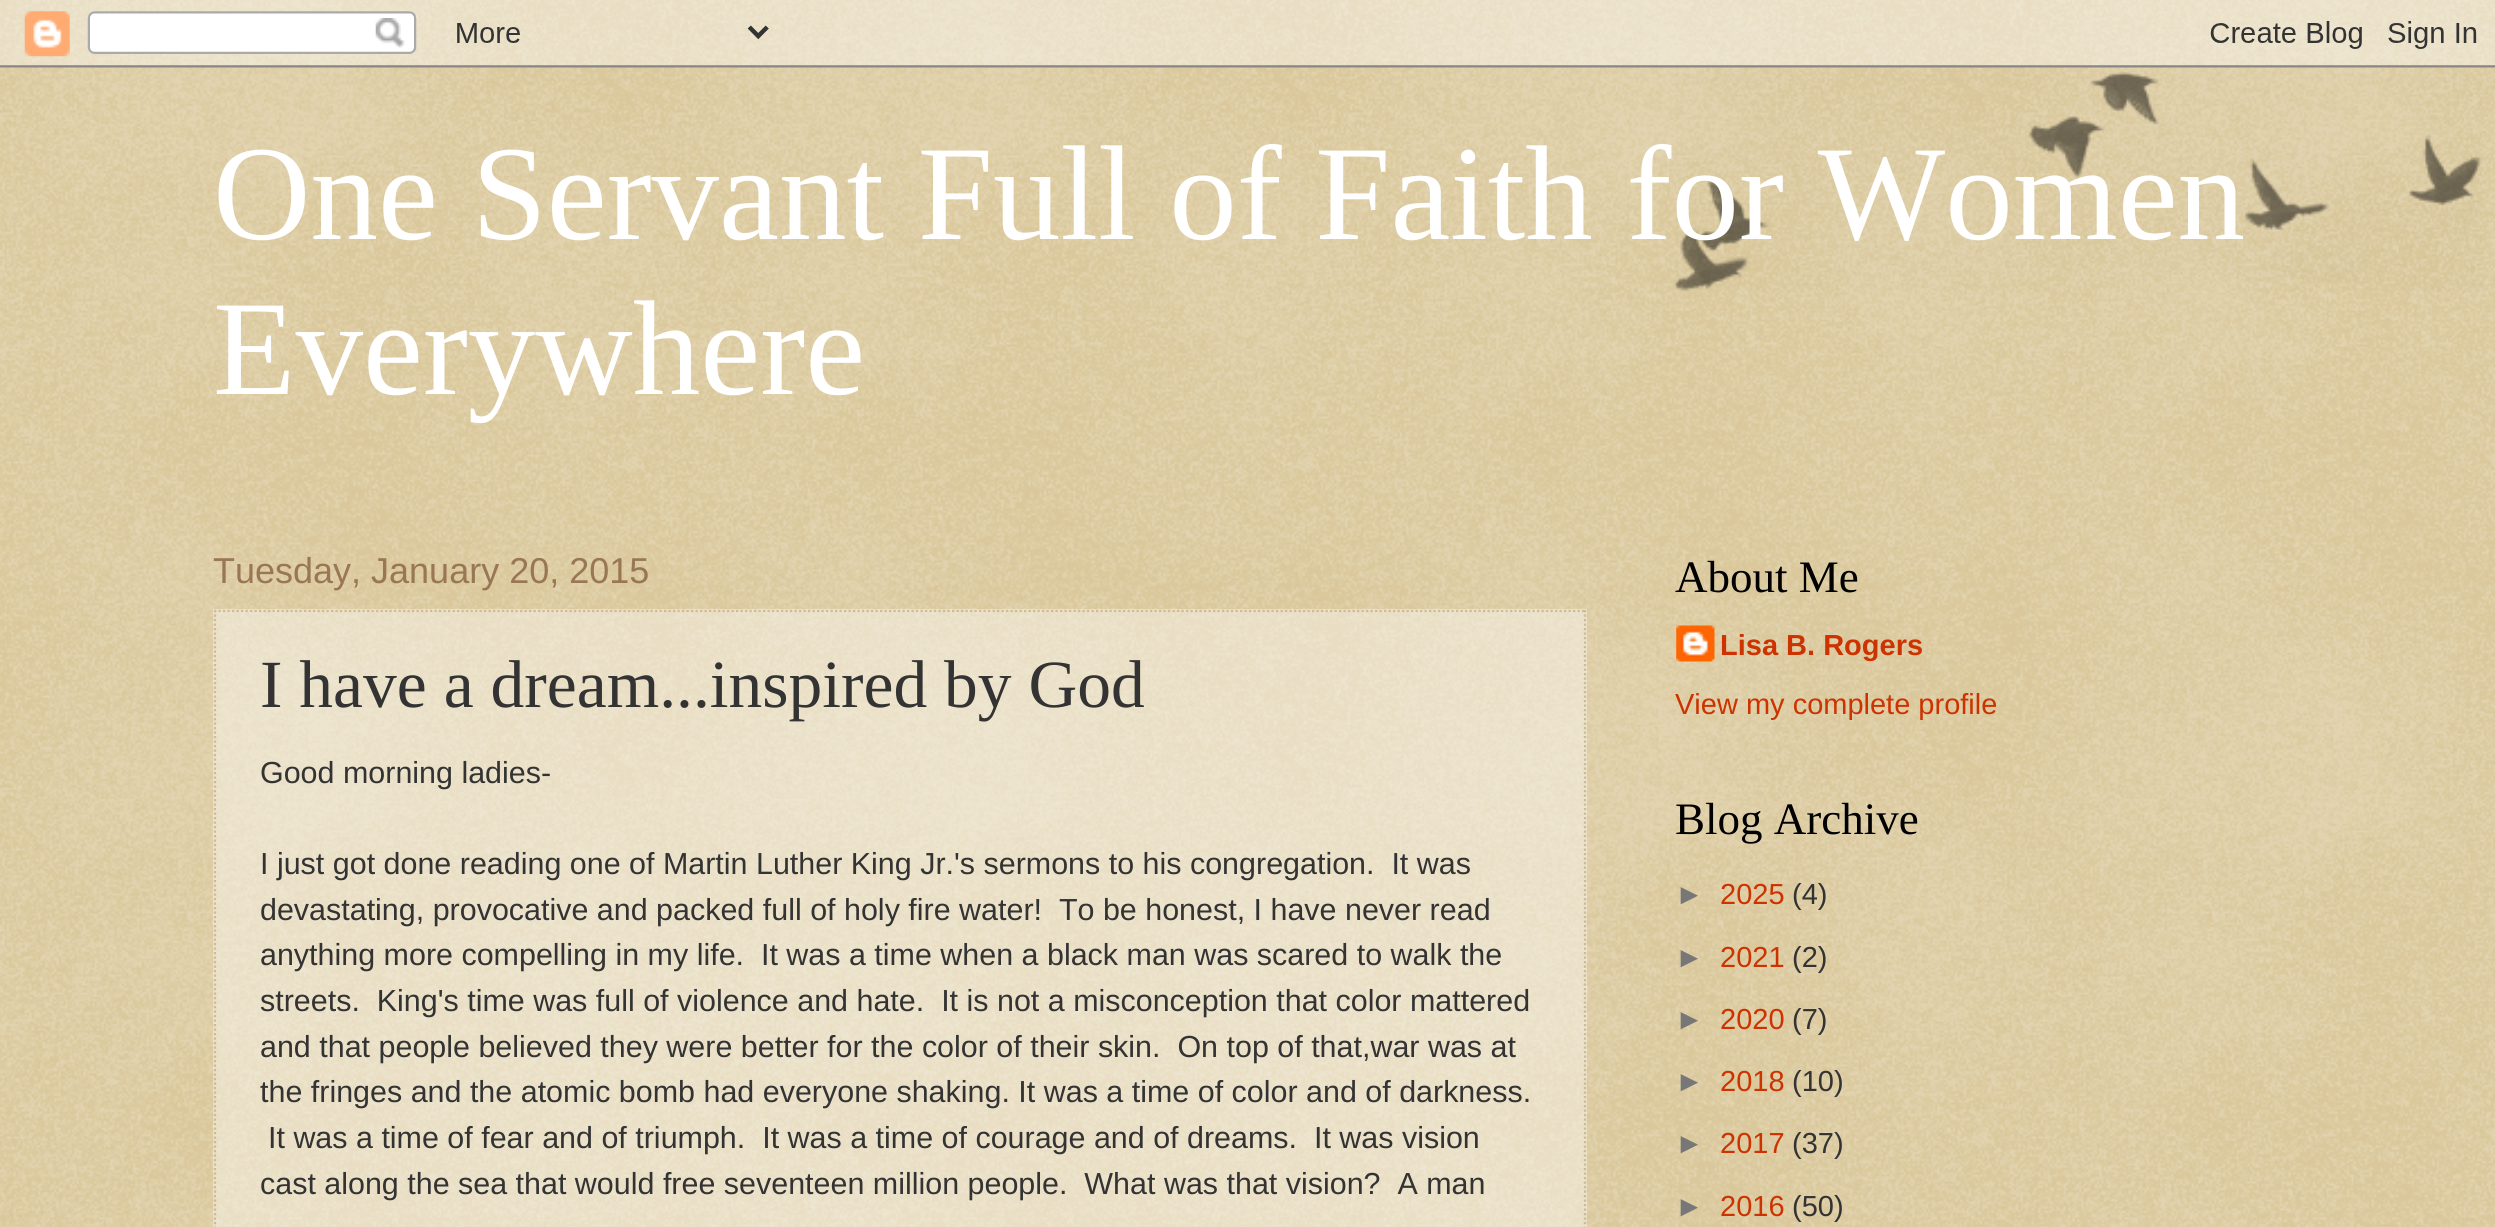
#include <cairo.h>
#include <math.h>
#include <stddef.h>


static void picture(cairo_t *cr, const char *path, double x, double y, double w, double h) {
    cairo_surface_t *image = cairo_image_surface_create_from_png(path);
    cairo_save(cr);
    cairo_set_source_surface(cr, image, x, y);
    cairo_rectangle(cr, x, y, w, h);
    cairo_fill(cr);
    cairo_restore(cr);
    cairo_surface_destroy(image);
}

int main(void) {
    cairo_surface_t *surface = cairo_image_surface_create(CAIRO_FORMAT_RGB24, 2495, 1227);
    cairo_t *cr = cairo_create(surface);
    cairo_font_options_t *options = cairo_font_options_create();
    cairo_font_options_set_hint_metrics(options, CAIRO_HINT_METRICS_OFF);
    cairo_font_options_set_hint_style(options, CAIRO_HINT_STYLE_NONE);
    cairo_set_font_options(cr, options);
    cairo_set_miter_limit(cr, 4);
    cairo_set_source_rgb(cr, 0.753, 0.631, 0.329);
    cairo_paint(cr);
    picture(cr, "img1.png", 0, 0, 2495, 1227);
    picture(cr, "img2.png", 0, 0, 2495, 68);
    picture(cr, "img3.png", 1674, 72, 809, 219);
    cairo_select_font_face(cr, "Liberation Serif", CAIRO_FONT_SLANT_NORMAL, CAIRO_FONT_WEIGHT_NORMAL);
    cairo_set_font_size(cr, 135);
    cairo_set_source_rgb(cr, 1, 1, 1);
    cairo_move_to(cr, 213, 239);
    cairo_show_text(cr, "One Servant Full of Faith for Women");
    cairo_move_to(cr, 213, 394);
    cairo_show_text(cr, "Everywhere");
    cairo_select_font_face(cr, "Liberation Sans", CAIRO_FONT_SLANT_NORMAL, CAIRO_FONT_WEIGHT_NORMAL);
    cairo_set_font_size(cr, 36);
    cairo_set_source_rgb(cr, 0.6, 0.467, 0.333);
    cairo_move_to(cr, 213, 583);
    cairo_show_text(cr, "Tuesday, January 20, 2015");
    cairo_set_source_rgba(cr, 1, 1, 1, 0.4);
    cairo_rectangle(cr, 213, 609, 1374, 618);
    cairo_fill(cr);
    cairo_new_path(cr);
    cairo_move_to(cr, 214, 611);
    cairo_line_to(cr, 1586, 611);
    cairo_set_source_rgb(cr, 0.8, 0.733, 0.6);
    cairo_set_line_width(cr, 2.2);
    cairo_set_dash(cr, (double[]){2.25, 2.25}, 2, 0);
    cairo_stroke(cr);
    cairo_new_path(cr);
    cairo_move_to(cr, 1585, 610);
    cairo_line_to(cr, 1585, 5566.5);
    cairo_stroke(cr);
    cairo_new_path(cr);
    cairo_move_to(cr, 215, 610);
    cairo_line_to(cr, 215, 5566.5);
    cairo_stroke(cr);
    cairo_select_font_face(cr, "Liberation Serif", CAIRO_FONT_SLANT_NORMAL, CAIRO_FONT_WEIGHT_NORMAL);
    cairo_set_font_size(cr, 67.5);
    cairo_set_source_rgb(cr, 0.2, 0.2, 0.2);
    cairo_move_to(cr, 260, 707);
    cairo_show_text(cr, "I have a dream...inspired by God");
    cairo_select_font_face(cr, "Liberation Sans", CAIRO_FONT_SLANT_NORMAL, CAIRO_FONT_WEIGHT_NORMAL);
    cairo_set_font_size(cr, 30.45);
    cairo_move_to(cr, 260, 783);
    cairo_show_text(cr, "Good morning ladies-");
    cairo_move_to(cr, 260, 874);
    cairo_show_text(cr, "I just got done reading one of Martin Luther King Jr.'s sermons to his congregation.  It was");
    cairo_move_to(cr, 260, 920);
    cairo_show_text(cr, "devastating, provocative and packed full of holy fire water!  To be honest, I have never read");
    cairo_move_to(cr, 260, 965);
    cairo_show_text(cr, "anything more compelling in my life.  It was a time when a black man was scared to walk the");
    cairo_move_to(cr, 260, 1011);
    cairo_show_text(cr, "streets.  King's time was full of violence and hate.  It is not a misconception that color mattered");
    cairo_move_to(cr, 260, 1057);
    cairo_show_text(cr, "and that people believed they were better for the color of their skin.  On top of that,war was at");
    cairo_move_to(cr, 260, 1102);
    cairo_show_text(cr, "the fringes and the atomic bomb had everyone shaking. It was a time of color and of darkness.");
    cairo_move_to(cr, 268, 1148);
    cairo_show_text(cr, "It was a time of fear and of triumph.  It was a time of courage and of dreams.  It was vision");
    cairo_move_to(cr, 260, 1194);
    cairo_show_text(cr, "cast along the sea that would free seventeen million people.  What was that vision?  A man");
    cairo_select_font_face(cr, "Liberation Serif", CAIRO_FONT_SLANT_NORMAL, CAIRO_FONT_WEIGHT_NORMAL);
    cairo_set_font_size(cr, 45);
    cairo_set_source_rgb(cr, 0, 0, 0);
    cairo_move_to(cr, 1675, 592);
    cairo_show_text(cr, "About Me");
    picture(cr, "img4.png", 1676, 625, 39, 37);
    cairo_select_font_face(cr, "Liberation Sans", CAIRO_FONT_SLANT_NORMAL, CAIRO_FONT_WEIGHT_BOLD);
    cairo_set_font_size(cr, 29);
    cairo_set_source_rgb(cr, 0.8, 0.2, 0);
    cairo_move_to(cr, 1720, 655);
    cairo_show_text(cr, "Lisa B. Rogers");
    cairo_select_font_face(cr, "Liberation Sans", CAIRO_FONT_SLANT_NORMAL, CAIRO_FONT_WEIGHT_NORMAL);
    cairo_move_to(cr, 1675, 714);
    cairo_show_text(cr, "View my complete profile");
    cairo_select_font_face(cr, "Liberation Serif", CAIRO_FONT_SLANT_NORMAL, CAIRO_FONT_WEIGHT_NORMAL);
    cairo_set_font_size(cr, 45);
    cairo_set_source_rgb(cr, 0, 0, 0);
    cairo_move_to(cr, 1675, 834);
    cairo_show_text(cr, "Blog Archive");
    cairo_select_font_face(cr, "Liberation Sans", CAIRO_FONT_SLANT_NORMAL, CAIRO_FONT_WEIGHT_NORMAL);
    cairo_set_font_size(cr, 29);
    cairo_set_source_rgb(cr, 0.467, 0.467, 0.467);
    cairo_move_to(cr, 1675, 904);
    cairo_show_text(cr, "►");
    cairo_set_source_rgb(cr, 0.8, 0.2, 0);
    cairo_move_to(cr, 1720, 904);
    cairo_show_text(cr, "2025");
    cairo_set_source_rgb(cr, 0.2, 0.2, 0.2);
    cairo_move_to(cr, 1792, 904);
    cairo_show_text(cr, "(4)");
    cairo_set_source_rgb(cr, 0.467, 0.467, 0.467);
    cairo_move_to(cr, 1675, 967);
    cairo_show_text(cr, "►");
    cairo_set_source_rgb(cr, 0.8, 0.2, 0);
    cairo_move_to(cr, 1720, 967);
    cairo_show_text(cr, "2021");
    cairo_set_source_rgb(cr, 0.2, 0.2, 0.2);
    cairo_move_to(cr, 1792, 967);
    cairo_show_text(cr, "(2)");
    cairo_set_source_rgb(cr, 0.467, 0.467, 0.467);
    cairo_move_to(cr, 1675, 1029);
    cairo_show_text(cr, "►");
    cairo_set_source_rgb(cr, 0.8, 0.2, 0);
    cairo_move_to(cr, 1720, 1029);
    cairo_show_text(cr, "2020");
    cairo_set_source_rgb(cr, 0.2, 0.2, 0.2);
    cairo_move_to(cr, 1792, 1029);
    cairo_show_text(cr, "(7)");
    cairo_set_source_rgb(cr, 0.467, 0.467, 0.467);
    cairo_move_to(cr, 1675, 1091);
    cairo_show_text(cr, "►");
    cairo_set_source_rgb(cr, 0.8, 0.2, 0);
    cairo_move_to(cr, 1720, 1091);
    cairo_show_text(cr, "2018");
    cairo_set_source_rgb(cr, 0.2, 0.2, 0.2);
    cairo_move_to(cr, 1792, 1091);
    cairo_show_text(cr, "(10)");
    cairo_set_source_rgb(cr, 0.467, 0.467, 0.467);
    cairo_move_to(cr, 1675, 1153);
    cairo_show_text(cr, "►");
    cairo_set_source_rgb(cr, 0.8, 0.2, 0);
    cairo_move_to(cr, 1720, 1153);
    cairo_show_text(cr, "2017");
    cairo_set_source_rgb(cr, 0.2, 0.2, 0.2);
    cairo_move_to(cr, 1792, 1153);
    cairo_show_text(cr, "(37)");
    cairo_set_source_rgb(cr, 0.467, 0.467, 0.467);
    cairo_move_to(cr, 1675, 1216);
    cairo_show_text(cr, "►");
    cairo_set_source_rgb(cr, 0.8, 0.2, 0);
    cairo_move_to(cr, 1720, 1216);
    cairo_show_text(cr, "2016");
    cairo_set_source_rgb(cr, 0.2, 0.2, 0.2);
    cairo_move_to(cr, 1792, 1216);
    cairo_show_text(cr, "(50)");
    cairo_surface_write_to_png(surface, "page.png");
    cairo_font_options_destroy(options);
    cairo_destroy(cr);
    cairo_surface_destroy(surface);
    return 0;
}
